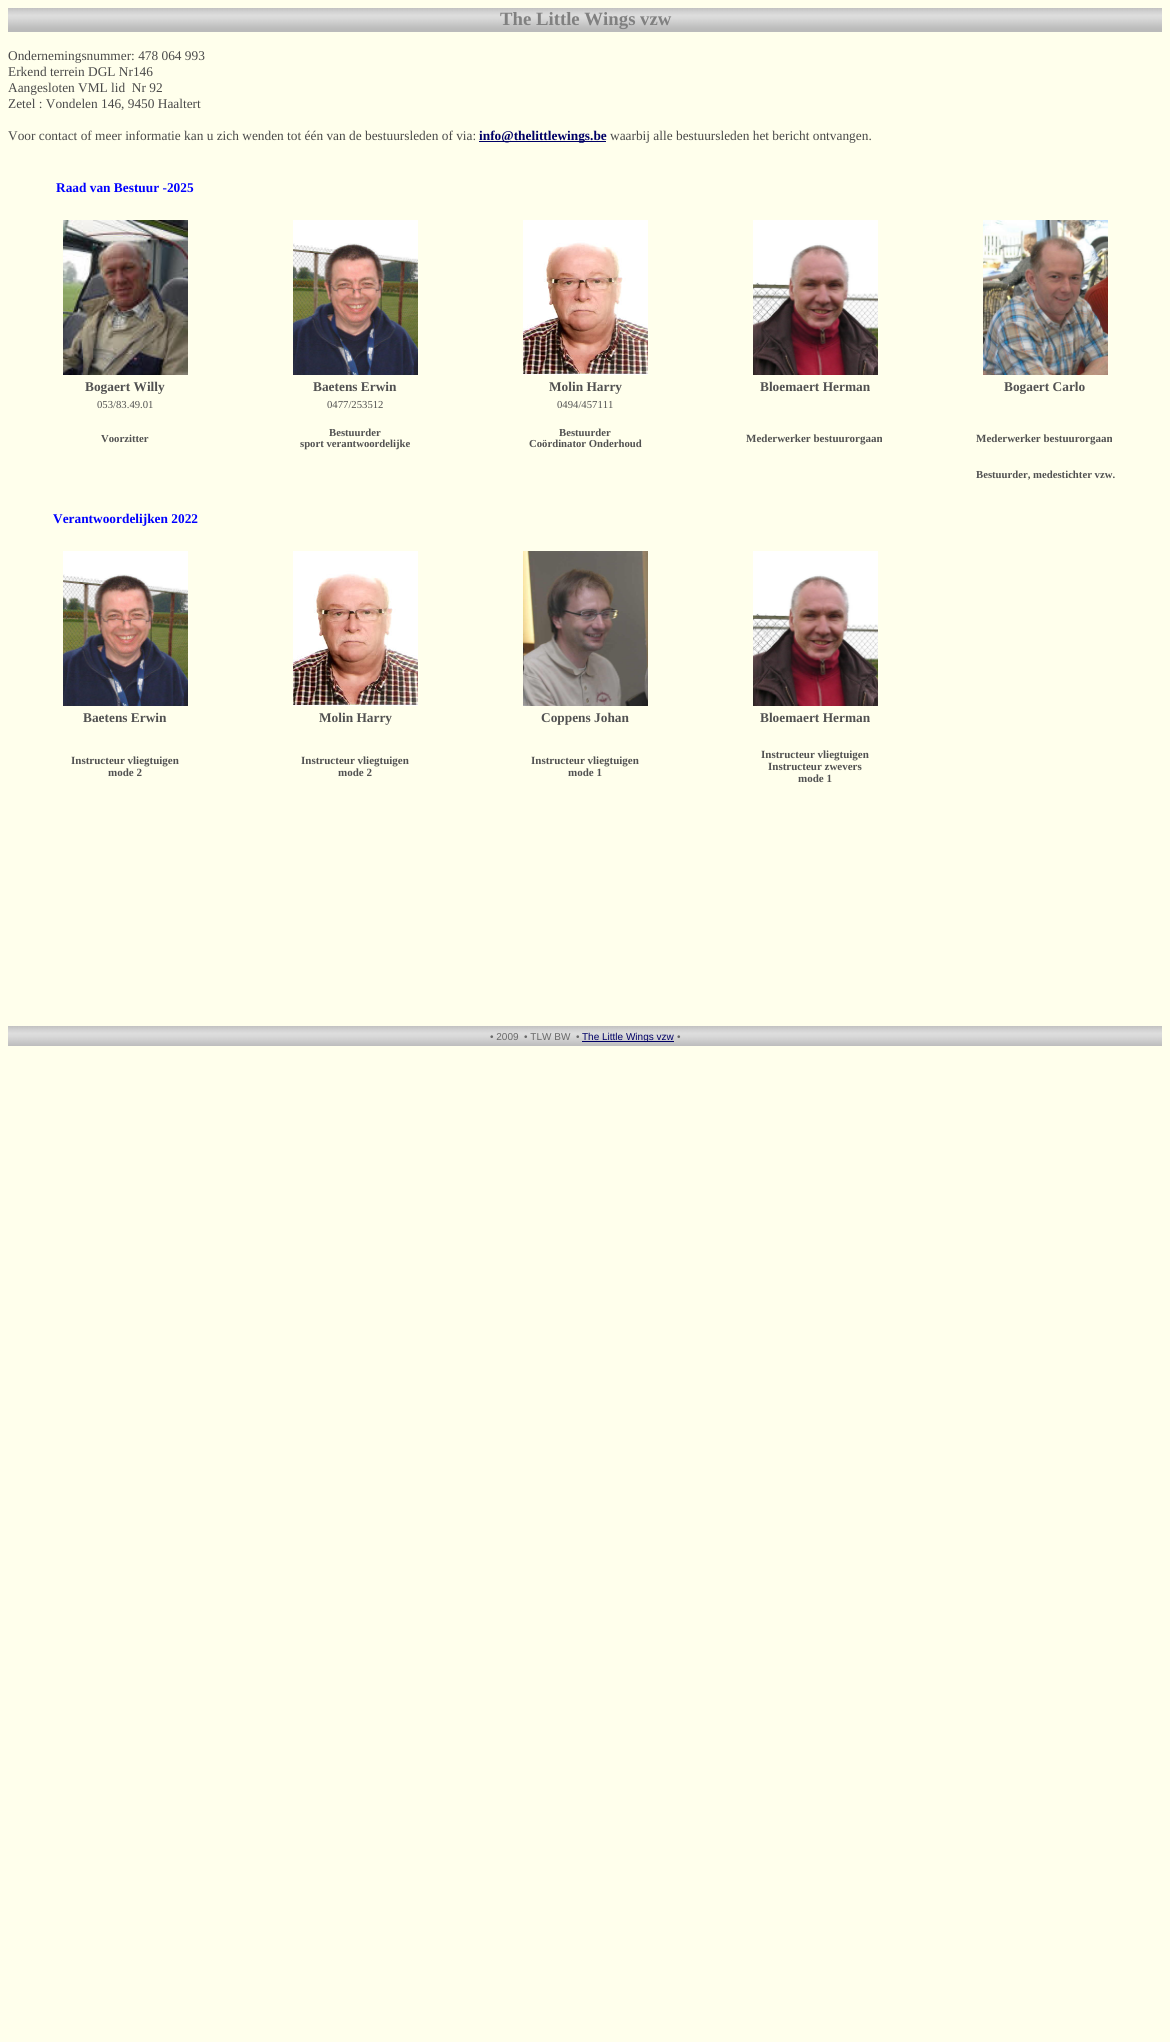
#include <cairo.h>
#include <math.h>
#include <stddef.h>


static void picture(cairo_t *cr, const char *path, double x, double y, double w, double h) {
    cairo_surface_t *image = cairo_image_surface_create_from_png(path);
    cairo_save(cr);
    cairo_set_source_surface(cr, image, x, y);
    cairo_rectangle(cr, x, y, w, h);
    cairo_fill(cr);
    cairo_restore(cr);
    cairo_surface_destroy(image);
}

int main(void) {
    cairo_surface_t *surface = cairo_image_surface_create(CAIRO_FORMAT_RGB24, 1170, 2042);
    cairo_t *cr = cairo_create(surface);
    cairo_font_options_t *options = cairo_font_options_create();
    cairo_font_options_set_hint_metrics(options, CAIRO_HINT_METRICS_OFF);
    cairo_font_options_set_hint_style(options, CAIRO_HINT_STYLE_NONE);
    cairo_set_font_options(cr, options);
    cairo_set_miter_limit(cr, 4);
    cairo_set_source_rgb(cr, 1, 1, 0.925);
    cairo_paint(cr);
    picture(cr, "img1.png", 8, 8, 1154, 24);
    cairo_select_font_face(cr, "Liberation Serif", CAIRO_FONT_SLANT_NORMAL, CAIRO_FONT_WEIGHT_BOLD);
    cairo_set_font_size(cr, 18.75);
    cairo_set_source_rgb(cr, 0.502, 0.502, 0.502);
    cairo_move_to(cr, 500, 25);
    cairo_show_text(cr, "The Little Wings vzw");
    cairo_select_font_face(cr, "Liberation Serif", CAIRO_FONT_SLANT_NORMAL, CAIRO_FONT_WEIGHT_NORMAL);
    cairo_set_font_size(cr, 13.35);
    cairo_set_source_rgb(cr, 0.286, 0.286, 0.286);
    cairo_move_to(cr, 8, 60);
    cairo_show_text(cr, "Ondernemingsnummer: 478 064 993");
    cairo_move_to(cr, 8, 76);
    cairo_show_text(cr, "Erkend terrein DGL Nr146");
    cairo_move_to(cr, 8, 92);
    cairo_show_text(cr, "Aangesloten VML lid  Nr 92");
    cairo_move_to(cr, 8, 108);
    cairo_show_text(cr, "Zetel : Vondelen 146, 9450 Haaltert");
    cairo_move_to(cr, 8, 140);
    cairo_show_text(cr, "Voor contact of meer informatie kan u zich wenden tot één van de bestuursleden of via:");
    cairo_set_source_rgb(cr, 0, 0, 0.4);
    cairo_rectangle(cr, 479, 141, 127, 1);
    cairo_fill(cr);
    cairo_select_font_face(cr, "Liberation Serif", CAIRO_FONT_SLANT_NORMAL, CAIRO_FONT_WEIGHT_BOLD);
    cairo_move_to(cr, 479, 140);
    cairo_show_text(cr, "info@thelittlewings.be");
    cairo_select_font_face(cr, "Liberation Serif", CAIRO_FONT_SLANT_NORMAL, CAIRO_FONT_WEIGHT_NORMAL);
    cairo_set_source_rgb(cr, 0.286, 0.286, 0.286);
    cairo_move_to(cr, 610, 140);
    cairo_show_text(cr, "waarbij alle bestuursleden het bericht ontvangen.");
    cairo_select_font_face(cr, "Liberation Serif", CAIRO_FONT_SLANT_NORMAL, CAIRO_FONT_WEIGHT_BOLD);
    cairo_set_source_rgb(cr, 0, 0, 1);
    cairo_move_to(cr, 56, 192);
    cairo_show_text(cr, "Raad van Bestuur -2025");
    picture(cr, "img2.png", 63, 220, 125, 155);
    picture(cr, "img3.png", 293, 220, 125, 155);
    picture(cr, "img4.png", 523, 220, 125, 155);
    picture(cr, "img5.png", 753, 220, 125, 155);
    picture(cr, "img6.png", 983, 220, 125, 155);
    cairo_set_source_rgb(cr, 0.318, 0.318, 0.318);
    cairo_move_to(cr, 85, 391);
    cairo_show_text(cr, "Bogaert Willy");
    cairo_move_to(cr, 313, 391);
    cairo_show_text(cr, "Baetens Erwin");
    cairo_move_to(cr, 549, 391);
    cairo_show_text(cr, "Molin Harry");
    cairo_move_to(cr, 760, 391);
    cairo_show_text(cr, "Bloemaert Herman");
    cairo_move_to(cr, 1004, 391);
    cairo_show_text(cr, "Bogaert Carlo");
    cairo_select_font_face(cr, "Liberation Serif", CAIRO_FONT_SLANT_NORMAL, CAIRO_FONT_WEIGHT_NORMAL);
    cairo_set_font_size(cr, 10.7);
    cairo_move_to(cr, 97, 408);
    cairo_show_text(cr, "053/83.49.01");
    cairo_move_to(cr, 327, 408);
    cairo_show_text(cr, "0477/253512");
    cairo_move_to(cr, 557, 408);
    cairo_show_text(cr, "0494/457111");
    cairo_select_font_face(cr, "Liberation Serif", CAIRO_FONT_SLANT_NORMAL, CAIRO_FONT_WEIGHT_BOLD);
    cairo_move_to(cr, 101, 442);
    cairo_show_text(cr, "Voorzitter");
    cairo_move_to(cr, 329, 436);
    cairo_show_text(cr, "Bestuurder");
    cairo_move_to(cr, 300, 447);
    cairo_show_text(cr, "sport verantwoordelijke");
    cairo_move_to(cr, 559, 436);
    cairo_show_text(cr, "Bestuurder");
    cairo_move_to(cr, 529, 447);
    cairo_show_text(cr, "Coördinator Onderhoud");
    cairo_set_font_size(cr, 11);
    cairo_move_to(cr, 746, 442);
    cairo_show_text(cr, "Mederwerker bestuurorgaan");
    cairo_move_to(cr, 976, 442);
    cairo_show_text(cr, "Mederwerker bestuurorgaan");
    cairo_set_font_size(cr, 10.7);
    cairo_move_to(cr, 976, 478);
    cairo_show_text(cr, "Bestuurder, medestichter vzw.");
    cairo_set_font_size(cr, 13.35);
    cairo_set_source_rgb(cr, 0, 0, 1);
    cairo_move_to(cr, 53, 523);
    cairo_show_text(cr, "Verantwoordelijken 2022");
    picture(cr, "img7.png", 63, 551, 125, 155);
    picture(cr, "img4.png", 293, 551, 125, 155);
    picture(cr, "img8.png", 523, 551, 125, 155);
    picture(cr, "img9.png", 753, 551, 125, 155);
    cairo_set_source_rgb(cr, 0.318, 0.318, 0.318);
    cairo_move_to(cr, 83, 722);
    cairo_show_text(cr, "Baetens Erwin");
    cairo_move_to(cr, 319, 722);
    cairo_show_text(cr, "Molin Harry");
    cairo_move_to(cr, 541, 722);
    cairo_show_text(cr, "Coppens Johan");
    cairo_move_to(cr, 760, 722);
    cairo_show_text(cr, "Bloemaert Herman");
    cairo_set_font_size(cr, 11);
    cairo_move_to(cr, 71, 764);
    cairo_show_text(cr, "Instructeur vliegtuigen");
    cairo_move_to(cr, 108, 776);
    cairo_show_text(cr, "mode 2");
    cairo_move_to(cr, 301, 764);
    cairo_show_text(cr, "Instructeur vliegtuigen");
    cairo_move_to(cr, 338, 776);
    cairo_show_text(cr, "mode 2");
    cairo_move_to(cr, 531, 764);
    cairo_show_text(cr, "Instructeur vliegtuigen");
    cairo_move_to(cr, 568, 776);
    cairo_show_text(cr, "mode 1");
    cairo_move_to(cr, 761, 758);
    cairo_show_text(cr, "Instructeur vliegtuigen");
    cairo_move_to(cr, 768, 770);
    cairo_show_text(cr, "Instructeur zwevers");
    cairo_move_to(cr, 798, 782);
    cairo_show_text(cr, "mode 1");
    picture(cr, "img10.png", 8, 1026, 1154, 20);
    cairo_select_font_face(cr, "Liberation Sans", CAIRO_FONT_SLANT_NORMAL, CAIRO_FONT_WEIGHT_NORMAL);
    cairo_set_font_size(cr, 10);
    cairo_set_source_rgb(cr, 0.408, 0.408, 0.408);
    cairo_move_to(cr, 490, 1040);
    cairo_show_text(cr, "• 2009  • TLW BW  •");
    cairo_set_source_rgb(cr, 0, 0, 0.4);
    cairo_rectangle(cr, 582, 1041, 92, 1);
    cairo_fill(cr);
    cairo_move_to(cr, 582, 1040);
    cairo_show_text(cr, "The Little Wings vzw");
    cairo_set_source_rgb(cr, 0.408, 0.408, 0.408);
    cairo_move_to(cr, 677, 1040);
    cairo_show_text(cr, "•");
    cairo_surface_write_to_png(surface, "page.png");
    cairo_font_options_destroy(options);
    cairo_destroy(cr);
    cairo_surface_destroy(surface);
    return 0;
}
